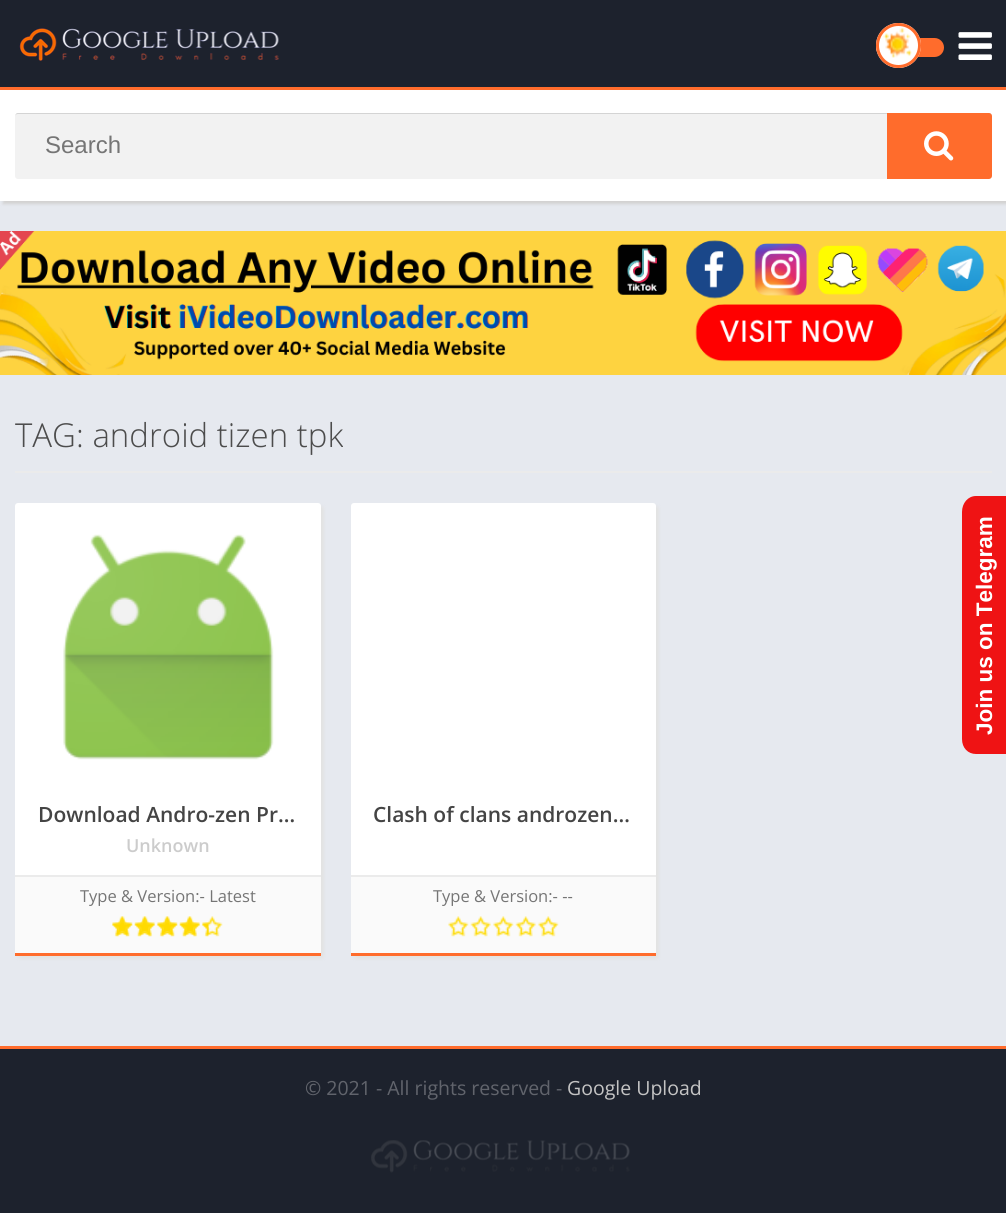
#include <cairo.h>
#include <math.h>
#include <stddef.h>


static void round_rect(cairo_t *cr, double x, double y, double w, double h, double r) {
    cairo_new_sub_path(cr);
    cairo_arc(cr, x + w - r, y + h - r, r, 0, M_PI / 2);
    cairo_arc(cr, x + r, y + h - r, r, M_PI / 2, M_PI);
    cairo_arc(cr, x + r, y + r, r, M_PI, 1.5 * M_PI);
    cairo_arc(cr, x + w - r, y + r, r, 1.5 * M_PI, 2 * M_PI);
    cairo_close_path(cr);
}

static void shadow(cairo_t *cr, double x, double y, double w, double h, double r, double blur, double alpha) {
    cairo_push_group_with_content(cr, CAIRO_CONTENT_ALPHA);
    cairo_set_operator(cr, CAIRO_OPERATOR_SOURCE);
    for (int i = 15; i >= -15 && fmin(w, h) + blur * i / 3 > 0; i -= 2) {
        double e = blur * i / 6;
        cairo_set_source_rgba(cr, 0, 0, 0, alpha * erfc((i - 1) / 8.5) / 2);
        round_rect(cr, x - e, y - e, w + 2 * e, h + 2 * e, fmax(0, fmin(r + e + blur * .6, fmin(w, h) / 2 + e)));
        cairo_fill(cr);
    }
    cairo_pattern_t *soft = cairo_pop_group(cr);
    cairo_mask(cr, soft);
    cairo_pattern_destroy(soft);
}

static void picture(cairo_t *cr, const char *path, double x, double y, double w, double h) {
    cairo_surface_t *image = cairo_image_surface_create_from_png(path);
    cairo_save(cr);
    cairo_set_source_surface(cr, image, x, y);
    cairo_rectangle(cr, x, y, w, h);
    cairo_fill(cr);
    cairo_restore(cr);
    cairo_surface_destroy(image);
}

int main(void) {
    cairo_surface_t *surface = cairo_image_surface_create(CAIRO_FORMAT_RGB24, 1006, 1213);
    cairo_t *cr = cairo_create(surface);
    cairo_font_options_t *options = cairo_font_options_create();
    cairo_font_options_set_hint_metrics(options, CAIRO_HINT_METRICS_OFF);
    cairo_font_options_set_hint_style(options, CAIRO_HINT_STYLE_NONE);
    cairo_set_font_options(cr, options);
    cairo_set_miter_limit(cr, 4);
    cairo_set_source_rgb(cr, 0.902, 0.914, 0.937);
    cairo_paint(cr);
    cairo_set_source_rgb(cr, 0.824, 0.82, 0.82);
    shadow(cr, 3, 3, 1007, 201, 0, 1.5, 1);
    cairo_set_source_rgb(cr, 0.114, 0.133, 0.176);
    cairo_rectangle(cr, 0, 0, 1006, 87);
    cairo_fill(cr);
    cairo_set_source_rgb(cr, 1, 0.424, 0.173);
    cairo_rectangle(cr, 0, 87, 1006, 3);
    cairo_fill(cr);
    picture(cr, "img1.png", 19, 28, 260, 33);
    round_rect(cr, 876, 38, 68, 19, 9.5);
    cairo_fill(cr);
    cairo_set_source_rgb(cr, 1, 1, 1);
    cairo_arc(cr, 898.5, 45.5, 22.5, 0, 2 * M_PI);
    cairo_fill(cr);
    picture(cr, "img2.png", 883, 28, 29, 30);
    cairo_arc(cr, 898.5, 45.5, 21, 0, 2 * M_PI);
    cairo_set_source_rgb(cr, 1, 0.424, 0.173);
    cairo_set_line_width(cr, 3);
    cairo_stroke(cr);
    picture(cr, "img3.png", 958, 32, 34, 28);
    cairo_set_source_rgb(cr, 1, 1, 1);
    cairo_rectangle(cr, 0, 90, 1006, 111);
    cairo_fill(cr);
    cairo_set_source_rgb(cr, 0.949, 0.949, 0.949);
    round_rect(cr, 15, 113, 977, 66, 3);
    cairo_fill(cr);
    cairo_set_source_rgb(cr, 0.831, 0.831, 0.831);
    cairo_new_path(cr);
    cairo_move_to(cr, 18, 114);
    cairo_line_to(cr, 988, 114);
    cairo_curve_to(cr, 990, 114, 992, 115, 992, 117);
    cairo_curve_to(cr, 992, 115, 991, 113, 989, 113);
    cairo_line_to(cr, 18, 113);
    cairo_curve_to(cr, 16, 113, 15, 115, 15, 117);
    cairo_curve_to(cr, 15, 115, 16, 114, 18, 114);
    cairo_close_path(cr);
    cairo_fill(cr);
    cairo_select_font_face(cr, "Liberation Sans", CAIRO_FONT_SLANT_NORMAL, CAIRO_FONT_WEIGHT_NORMAL);
    cairo_set_font_size(cr, 24);
    cairo_set_source_rgb(cr, 0.459, 0.459, 0.459);
    cairo_move_to(cr, 45, 153);
    cairo_show_text(cr, "Search");
    cairo_set_source_rgb(cr, 1, 0.424, 0.173);
    cairo_new_path(cr);
    cairo_move_to(cr, 887, 113);
    cairo_line_to(cr, 989, 113);
    cairo_curve_to(cr, 990.5, 113, 992, 114.5, 992, 116);
    cairo_line_to(cr, 992, 176);
    cairo_curve_to(cr, 992, 177.5, 990.5, 179, 989, 179);
    cairo_line_to(cr, 887, 179);
    cairo_close_path(cr);
    cairo_fill(cr);
    picture(cr, "img4.png", 924, 131, 30, 30);
    picture(cr, "img5.png", 0, 231, 1006, 144);
    cairo_set_source_rgb(cr, 0.918, 0.918, 0.918);
    cairo_rectangle(cr, 15, 471, 977, 2);
    cairo_fill(cr);
    cairo_select_font_face(cr, "Open Sans Light", CAIRO_FONT_SLANT_NORMAL, CAIRO_FONT_WEIGHT_NORMAL);
    cairo_set_font_size(cr, 33);
    cairo_set_source_rgb(cr, 0.298, 0.298, 0.298);
    cairo_move_to(cr, 15, 447);
    cairo_show_text(cr, "TAG: android tizen tpk");
    cairo_set_source_rgb(cr, 0.89, 0.89, 0.89);
    shadow(cr, 18, 506, 306, 453, 3, 1.5, 1);
    cairo_set_source_rgb(cr, 1, 1, 1);
    round_rect(cr, 15, 503, 306, 453, 3);
    cairo_fill(cr);
    picture(cr, "img6.png", 63, 534, 211, 226);
    cairo_select_font_face(cr, "Open Sans SemiBold", CAIRO_FONT_SLANT_NORMAL, CAIRO_FONT_WEIGHT_NORMAL);
    cairo_set_font_size(cr, 21);
    cairo_set_source_rgb(cr, 0.267, 0.267, 0.267);
    cairo_move_to(cr, 38, 822);
    cairo_show_text(cr, "Download Andro-zen Pr…");
    cairo_set_font_size(cr, 18);
    cairo_set_source_rgb(cr, 0.8, 0.8, 0.8);
    cairo_move_to(cr, 126, 852);
    cairo_show_text(cr, "Unknown");
    cairo_set_source_rgb(cr, 0.98, 0.98, 0.98);
    cairo_rectangle(cr, 15, 877, 306, 76);
    cairo_fill(cr);
    cairo_set_source_rgb(cr, 0.918, 0.918, 0.918);
    cairo_rectangle(cr, 15, 875, 306, 2);
    cairo_fill(cr);
    cairo_set_source_rgb(cr, 1, 0.424, 0.173);
    cairo_rectangle(cr, 15, 953, 306, 3);
    cairo_fill(cr);
    cairo_select_font_face(cr, "Open Sans", CAIRO_FONT_SLANT_NORMAL, CAIRO_FONT_WEIGHT_NORMAL);
    cairo_set_font_size(cr, 16.5);
    cairo_set_source_rgb(cr, 0.459, 0.459, 0.459);
    cairo_move_to(cr, 80, 902);
    cairo_show_text(cr, "Type & Version:- Latest");
    picture(cr, "img7.png", 112, 916, 111, 21);
    picture(cr, "img8.png", 112, 916, 97, 21);
    cairo_set_source_rgb(cr, 0.89, 0.89, 0.89);
    shadow(cr, 354, 506, 305, 453, 3, 1.5, 1);
    cairo_set_source_rgb(cr, 1, 1, 1);
    round_rect(cr, 351, 503, 305, 453, 3);
    cairo_fill(cr);
    cairo_select_font_face(cr, "Open Sans SemiBold", CAIRO_FONT_SLANT_NORMAL, CAIRO_FONT_WEIGHT_NORMAL);
    cairo_set_font_size(cr, 21);
    cairo_set_source_rgb(cr, 0.267, 0.267, 0.267);
    cairo_move_to(cr, 373, 822);
    cairo_show_text(cr, "Clash of clans androzen…");
    cairo_set_source_rgb(cr, 0.98, 0.98, 0.98);
    cairo_rectangle(cr, 351, 877, 305, 76);
    cairo_fill(cr);
    cairo_set_source_rgb(cr, 0.918, 0.918, 0.918);
    cairo_rectangle(cr, 351, 875, 305, 2);
    cairo_fill(cr);
    cairo_set_source_rgb(cr, 1, 0.424, 0.173);
    cairo_rectangle(cr, 351, 953, 305, 3);
    cairo_fill(cr);
    cairo_select_font_face(cr, "Open Sans", CAIRO_FONT_SLANT_NORMAL, CAIRO_FONT_WEIGHT_NORMAL);
    cairo_set_font_size(cr, 16.5);
    cairo_set_source_rgb(cr, 0.459, 0.459, 0.459);
    cairo_move_to(cr, 433, 902);
    cairo_show_text(cr, "Type & Version:- --");
    picture(cr, "img9.png", 448, 916, 111, 21);
    cairo_set_source_rgb(cr, 0.114, 0.133, 0.176);
    cairo_rectangle(cr, 0, 1049, 1006, 164);
    cairo_fill(cr);
    cairo_set_source_rgb(cr, 1, 0.424, 0.173);
    cairo_rectangle(cr, 0, 1046, 1006, 3);
    cairo_fill(cr);
    cairo_set_font_size(cr, 19.5);
    cairo_set_source_rgb(cr, 0.38, 0.392, 0.424);
    cairo_move_to(cr, 305, 1095);
    cairo_show_text(cr, "© 2021 - All rights reserved -");
    cairo_set_source_rgb(cr, 0.769, 0.769, 0.769);
    cairo_move_to(cr, 567, 1095);
    cairo_show_text(cr, "Google Upload");
    picture(cr, "img10.png", 371, 1140, 259, 33);
    cairo_set_source_rgb(cr, 0.937, 0.075, 0.082);
    cairo_new_path(cr);
    cairo_move_to(cr, 962, 739);
    cairo_line_to(cr, 962, 512);
    cairo_curve_to(cr, 962, 503, 968, 496, 976, 496);
    cairo_line_to(cr, 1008, 496);
    cairo_line_to(cr, 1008, 754);
    cairo_line_to(cr, 976, 754);
    cairo_curve_to(cr, 968, 754, 962, 748, 962, 739);
    cairo_close_path(cr);
    cairo_fill(cr);
    cairo_select_font_face(cr, "Liberation Sans", CAIRO_FONT_SLANT_NORMAL, CAIRO_FONT_WEIGHT_BOLD);
    cairo_set_font_size(cr, 22.5);
    cairo_set_source_rgb(cr, 1, 1, 1);
    cairo_save(cr);
    cairo_translate(cr, 992, 735);
    cairo_rotate(cr, -90 * M_PI / 180);
    cairo_move_to(cr, 0, 0);
    cairo_show_text(cr, "Join us on Telegram");
    cairo_restore(cr);
    cairo_surface_write_to_png(surface, "page.png");
    cairo_font_options_destroy(options);
    cairo_destroy(cr);
    cairo_surface_destroy(surface);
    return 0;
}
